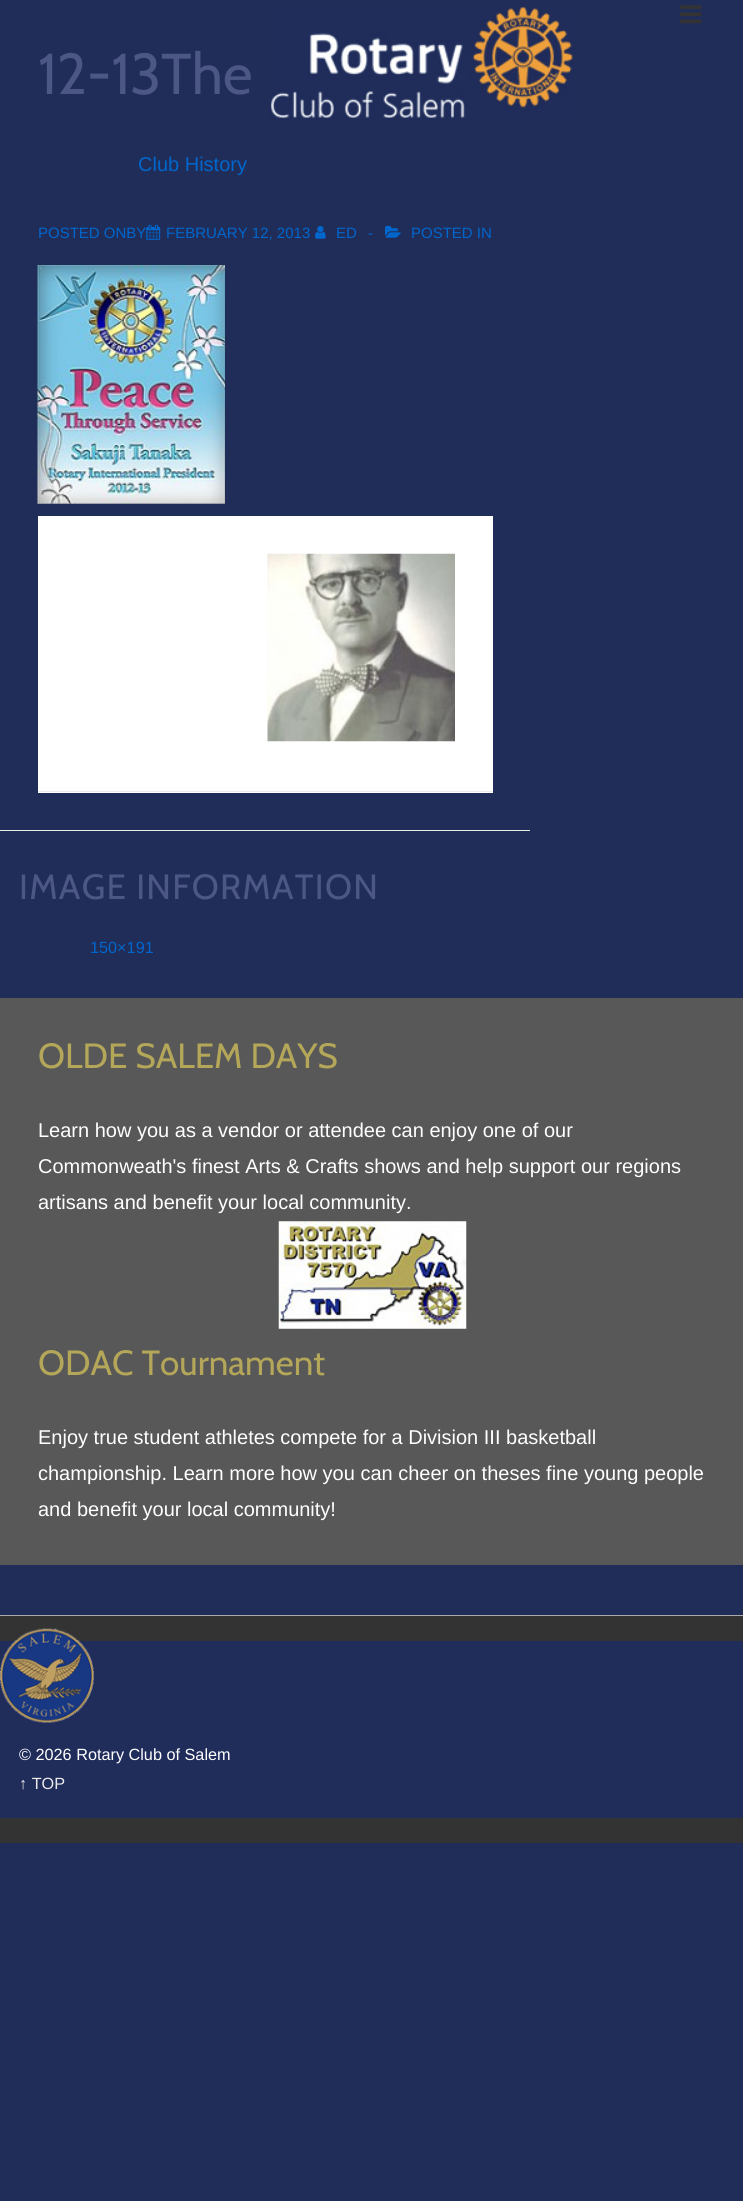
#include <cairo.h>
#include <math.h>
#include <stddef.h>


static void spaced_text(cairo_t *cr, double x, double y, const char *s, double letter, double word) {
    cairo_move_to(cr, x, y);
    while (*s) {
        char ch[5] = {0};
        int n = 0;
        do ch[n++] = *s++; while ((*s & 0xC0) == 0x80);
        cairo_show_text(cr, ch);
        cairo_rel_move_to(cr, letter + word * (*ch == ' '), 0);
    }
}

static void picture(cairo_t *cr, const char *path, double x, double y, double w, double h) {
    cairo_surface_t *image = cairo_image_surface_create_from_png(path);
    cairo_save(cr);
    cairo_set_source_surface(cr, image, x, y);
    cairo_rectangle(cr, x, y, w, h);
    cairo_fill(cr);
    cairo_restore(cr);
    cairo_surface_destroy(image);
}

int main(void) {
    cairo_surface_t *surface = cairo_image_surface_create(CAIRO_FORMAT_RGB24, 743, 2201);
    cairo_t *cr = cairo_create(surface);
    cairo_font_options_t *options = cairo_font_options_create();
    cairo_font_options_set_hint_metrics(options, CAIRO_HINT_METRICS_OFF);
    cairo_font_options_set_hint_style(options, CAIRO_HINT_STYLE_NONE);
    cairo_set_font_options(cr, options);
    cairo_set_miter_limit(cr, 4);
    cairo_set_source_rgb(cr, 0.129, 0.176, 0.349);
    cairo_paint(cr);
    picture(cr, "img1.png", 268, 7, 307, 113);
    picture(cr, "img2.png", 680, 5, 22, 19);
    cairo_set_source_rgb(cr, 0.918, 0.918, 0.918);
    cairo_rectangle(cr, 0, 830, 530, 1);
    cairo_fill(cr);
    cairo_select_font_face(cr, "Cabin", CAIRO_FONT_SLANT_NORMAL, CAIRO_FONT_WEIGHT_NORMAL);
    cairo_set_font_size(cr, 57.5);
    cairo_set_source_rgb(cr, 0.298, 0.341, 0.522);
    cairo_move_to(cr, 38, 94);
    cairo_show_text(cr, "12-13The");
    cairo_select_font_face(cr, "Liberation Sans", CAIRO_FONT_SLANT_NORMAL, CAIRO_FONT_WEIGHT_NORMAL);
    cairo_set_font_size(cr, 20);
    cairo_set_source_rgb(cr, 0, 0.4, 0.8);
    cairo_move_to(cr, 138, 171);
    cairo_show_text(cr, "Club History");
    cairo_set_font_size(cr, 15);
    cairo_move_to(cr, 38, 238);
    cairo_show_text(cr, "POSTED ONBY");
    picture(cr, "img3.png", 146, 224, 15, 16);
    cairo_move_to(cr, 166, 238);
    cairo_show_text(cr, "FEBRUARY 12, 2013");
    picture(cr, "img4.png", 315, 225, 11, 14);
    cairo_move_to(cr, 336, 238);
    cairo_show_text(cr, "ED");
    cairo_move_to(cr, 368, 238);
    cairo_show_text(cr, "-");
    picture(cr, "img5.png", 385, 225, 16, 13);
    cairo_move_to(cr, 411, 238);
    cairo_show_text(cr, "POSTED IN");
    picture(cr, "img6.png", 37, 265, 188, 239);
    cairo_set_source_rgb(cr, 1, 1, 1);
    cairo_rectangle(cr, 38, 516, 455, 277);
    cairo_fill(cr);
    cairo_set_source_rgb(cr, 0.918, 0.918, 0.918);
    cairo_rectangle(cr, 38, 791, 455, 1);
    cairo_fill(cr);
    picture(cr, "img7.png", 267, 553, 188, 189);
    cairo_select_font_face(cr, "Cabin", CAIRO_FONT_SLANT_NORMAL, CAIRO_FONT_WEIGHT_NORMAL);
    cairo_set_font_size(cr, 35);
    cairo_set_source_rgb(cr, 0.298, 0.341, 0.522);
    spaced_text(cr, 19, 899, "IMAGE INFORMATION", 1.25, 0);
    cairo_select_font_face(cr, "Liberation Sans", CAIRO_FONT_SLANT_NORMAL, CAIRO_FONT_WEIGHT_NORMAL);
    cairo_set_font_size(cr, 16.25);
    cairo_set_source_rgb(cr, 0, 0.4, 0.8);
    cairo_move_to(cr, 90, 953);
    cairo_show_text(cr, "150×191");
    cairo_set_source_rgb(cr, 0.345, 0.345, 0.345);
    cairo_rectangle(cr, 0, 998, 743, 567);
    cairo_fill(cr);
    cairo_select_font_face(cr, "Cabin", CAIRO_FONT_SLANT_NORMAL, CAIRO_FONT_WEIGHT_NORMAL);
    cairo_set_font_size(cr, 35);
    cairo_set_source_rgb(cr, 0.706, 0.655, 0.349);
    cairo_move_to(cr, 38, 1068);
    cairo_show_text(cr, "OLDE SALEM DAYS");
    cairo_select_font_face(cr, "Liberation Sans", CAIRO_FONT_SLANT_NORMAL, CAIRO_FONT_WEIGHT_NORMAL);
    cairo_set_font_size(cr, 20);
    cairo_set_source_rgb(cr, 1, 1, 1);
    cairo_move_to(cr, 38, 1137);
    cairo_show_text(cr, "Learn how you as a vendor or attendee can enjoy one of our");
    cairo_move_to(cr, 38, 1173);
    cairo_show_text(cr, "Commonweath's finest Arts & Crafts shows and help support our regions");
    cairo_move_to(cr, 38, 1209);
    cairo_show_text(cr, "artisans and benefit your local community.");
    picture(cr, "img8.png", 278, 1221, 189, 108);
    cairo_select_font_face(cr, "Cabin", CAIRO_FONT_SLANT_NORMAL, CAIRO_FONT_WEIGHT_NORMAL);
    cairo_set_font_size(cr, 35);
    cairo_set_source_rgb(cr, 0.706, 0.655, 0.349);
    cairo_move_to(cr, 38, 1375);
    cairo_show_text(cr, "ODAC Tournament");
    cairo_select_font_face(cr, "Liberation Sans", CAIRO_FONT_SLANT_NORMAL, CAIRO_FONT_WEIGHT_NORMAL);
    cairo_set_font_size(cr, 20);
    cairo_set_source_rgb(cr, 1, 1, 1);
    cairo_move_to(cr, 38, 1444);
    cairo_show_text(cr, "Enjoy true student athletes compete for a Division III basketball");
    cairo_move_to(cr, 38, 1480);
    cairo_show_text(cr, "championship. Learn more how you can cheer on theses fine young people");
    cairo_move_to(cr, 38, 1516);
    cairo_show_text(cr, "and benefit your local community!");
    cairo_set_source_rgb(cr, 0.2, 0.2, 0.2);
    cairo_rectangle(cr, 0, 1616, 743, 227);
    cairo_fill(cr);
    cairo_set_source_rgb(cr, 0.667, 0.667, 0.667);
    cairo_rectangle(cr, 0, 1615, 743, 1);
    cairo_fill(cr);
    cairo_set_source_rgb(cr, 0.125, 0.176, 0.353);
    cairo_rectangle(cr, 0, 1641, 743, 177);
    cairo_fill(cr);
    picture(cr, "img9.png", 0, 1628, 94, 95);
    cairo_set_font_size(cr, 16.25);
    cairo_set_source_rgb(cr, 1, 1, 1);
    cairo_move_to(cr, 19, 1760);
    cairo_show_text(cr, "© 2026 Rotary Club of Salem");
    cairo_set_source_rgb(cr, 0.918, 0.918, 0.918);
    cairo_move_to(cr, 19, 1789);
    cairo_show_text(cr, "↑ TOP");
    cairo_surface_write_to_png(surface, "page.png");
    cairo_font_options_destroy(options);
    cairo_destroy(cr);
    cairo_surface_destroy(surface);
    return 0;
}
